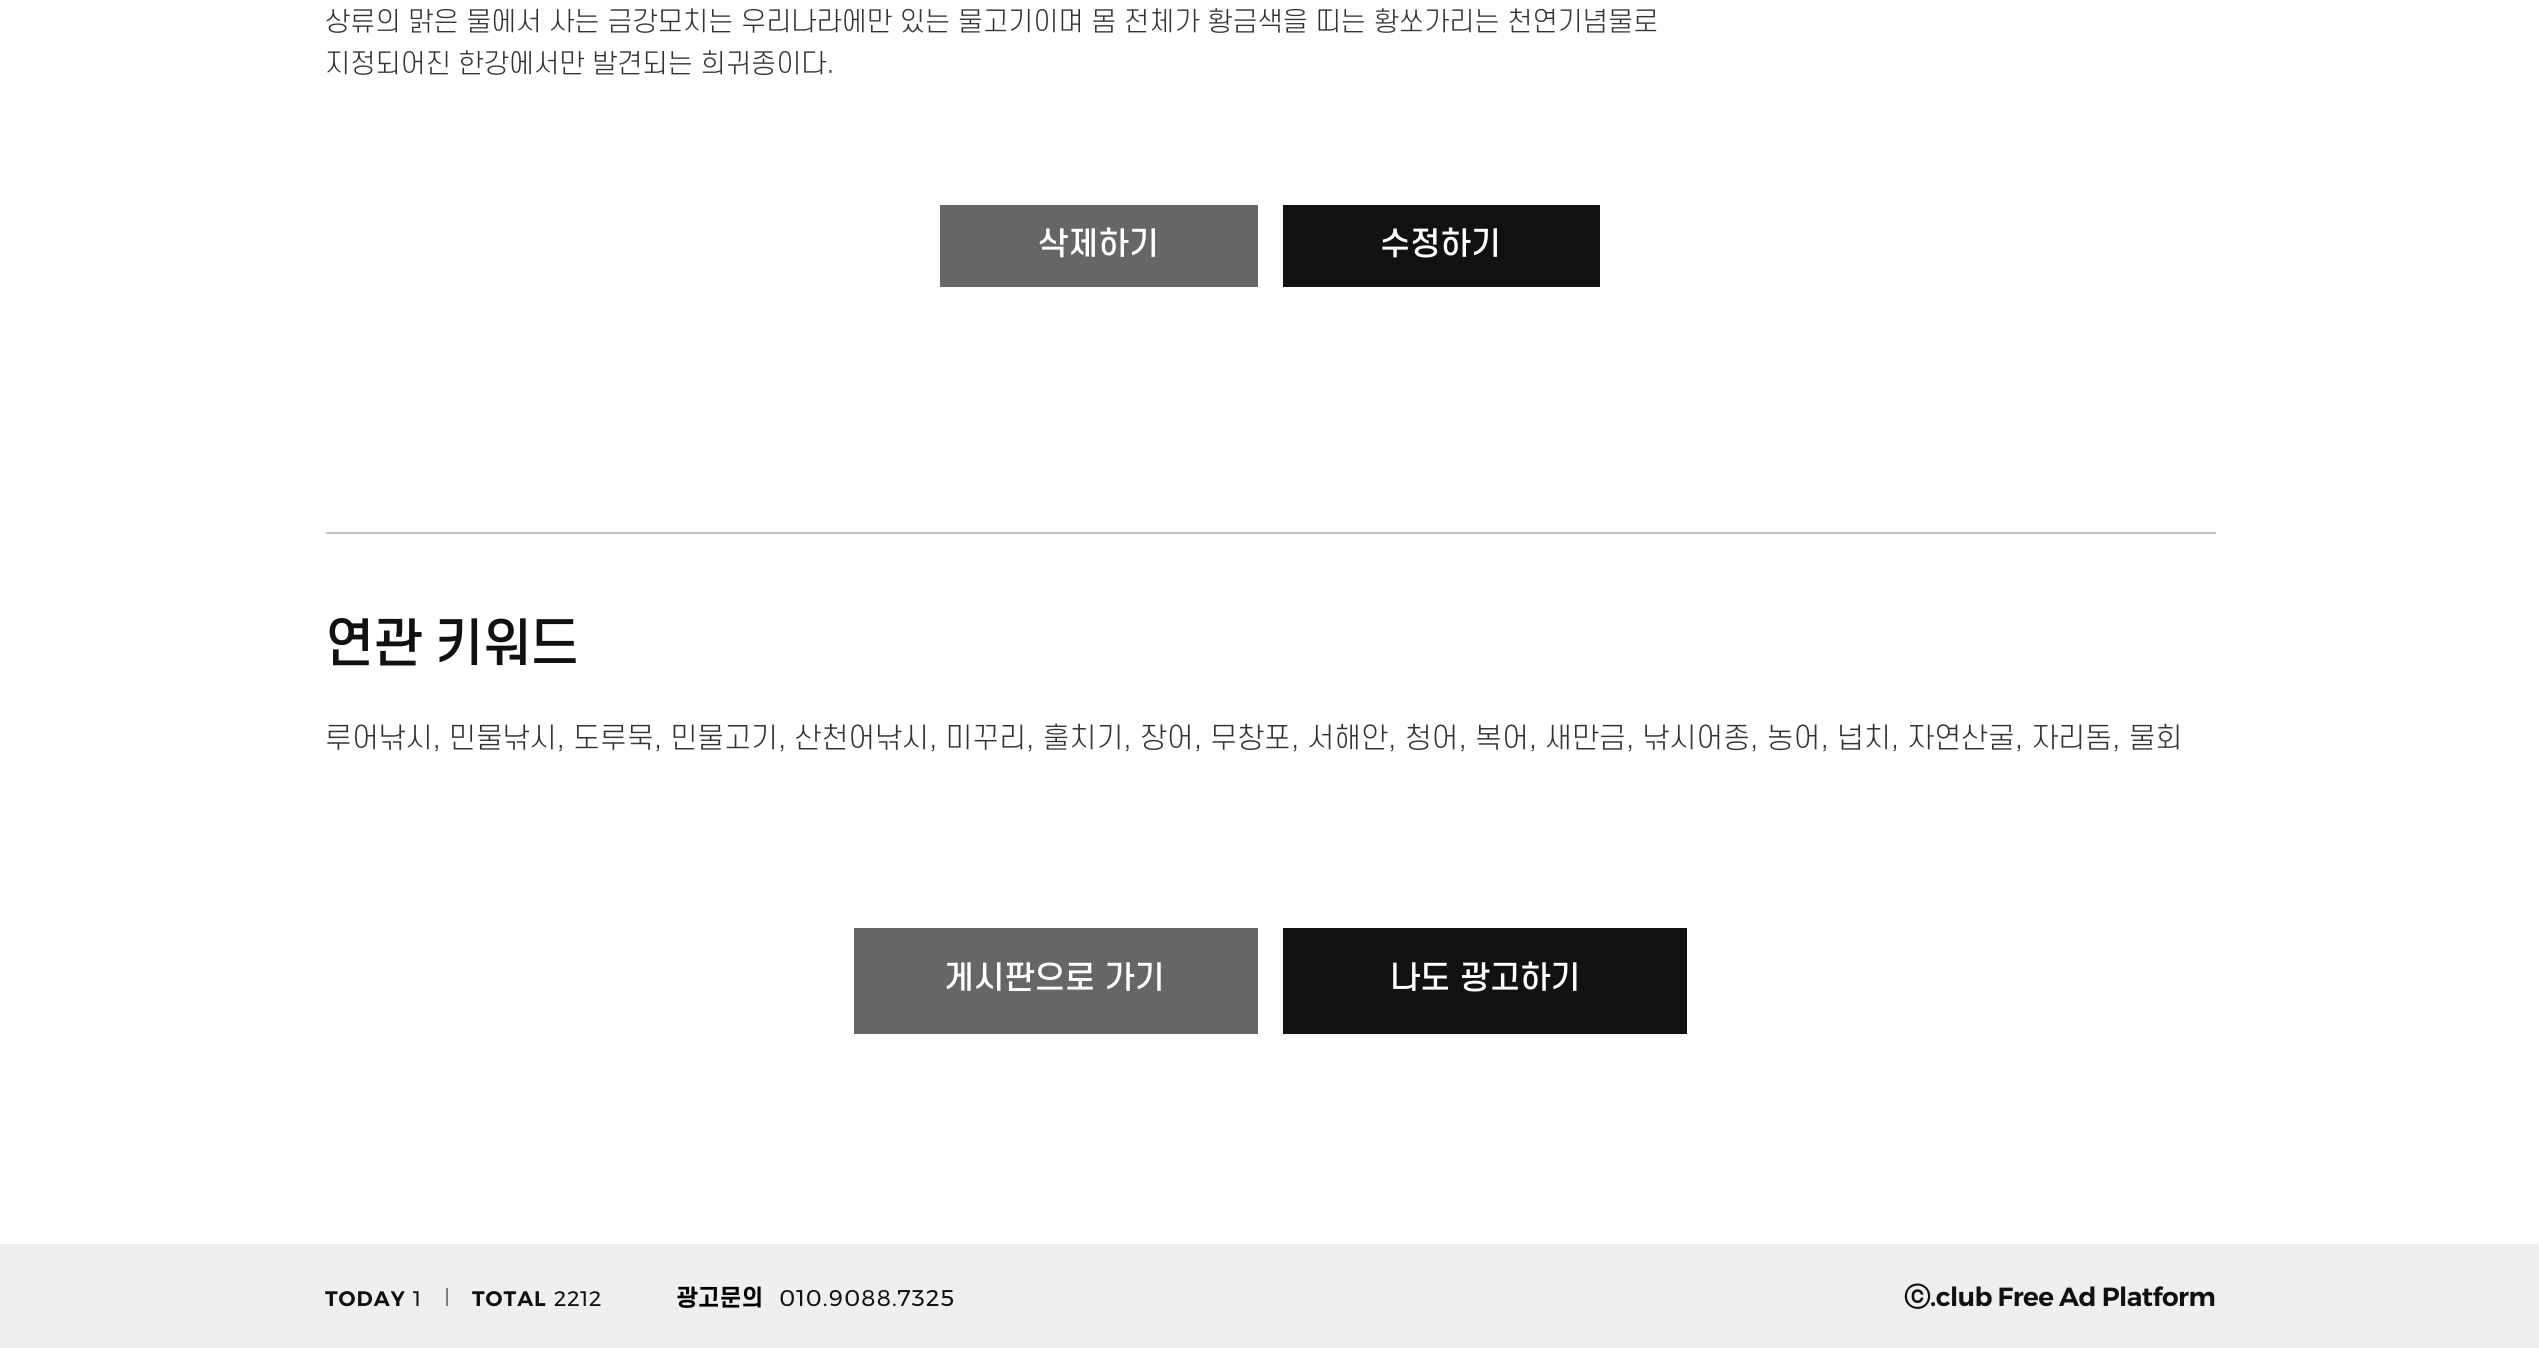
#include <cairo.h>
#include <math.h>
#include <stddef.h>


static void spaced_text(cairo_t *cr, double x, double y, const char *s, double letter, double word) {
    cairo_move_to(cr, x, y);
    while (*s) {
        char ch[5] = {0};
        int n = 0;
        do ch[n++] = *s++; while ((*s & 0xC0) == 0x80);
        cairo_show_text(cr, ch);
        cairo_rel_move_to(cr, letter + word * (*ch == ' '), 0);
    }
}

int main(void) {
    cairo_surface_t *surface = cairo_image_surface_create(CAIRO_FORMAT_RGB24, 2539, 1348);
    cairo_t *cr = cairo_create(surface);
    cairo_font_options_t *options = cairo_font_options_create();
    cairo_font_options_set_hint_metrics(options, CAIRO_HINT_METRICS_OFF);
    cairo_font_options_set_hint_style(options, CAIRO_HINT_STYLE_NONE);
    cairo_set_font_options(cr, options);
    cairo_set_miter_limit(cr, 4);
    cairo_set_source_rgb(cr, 1, 1, 1);
    cairo_paint(cr);
    cairo_select_font_face(cr, "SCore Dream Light", CAIRO_FONT_SLANT_NORMAL, CAIRO_FONT_WEIGHT_NORMAL);
    cairo_set_font_size(cr, 26.25);
    cairo_set_source_rgb(cr, 0.2, 0.2, 0.2);
    cairo_move_to(cr, 325, 31);
    cairo_show_text(cr, "상류의 맑은 물에서 사는 금강모치는 우리나라에만 있는 물고기이며 몸 전체가 황금색을 띠는 황쏘가리는 천연기념물로");
    cairo_move_to(cr, 325, 73);
    cairo_show_text(cr, "지정되어진 한강에서만 발견되는 희귀종이다.");
    cairo_set_source_rgb(cr, 0.4, 0.4, 0.4);
    cairo_rectangle(cr, 940, 205, 318, 82);
    cairo_fill(cr);
    cairo_select_font_face(cr, "SCore Dream Medium", CAIRO_FONT_SLANT_NORMAL, CAIRO_FONT_WEIGHT_NORMAL);
    cairo_set_font_size(cr, 31.5);
    cairo_set_source_rgb(cr, 1, 1, 1);
    cairo_move_to(cr, 1038, 255);
    cairo_show_text(cr, "삭제하기");
    cairo_set_source_rgb(cr, 0.067, 0.067, 0.067);
    cairo_rectangle(cr, 1283, 205, 317, 82);
    cairo_fill(cr);
    cairo_set_source_rgb(cr, 1, 1, 1);
    cairo_move_to(cr, 1380, 255);
    cairo_show_text(cr, "수정하기");
    cairo_set_source_rgb(cr, 0.753, 0.753, 0.753);
    cairo_rectangle(cr, 326, 532, 1890, 2);
    cairo_fill(cr);
    cairo_set_font_size(cr, 51.5);
    cairo_set_source_rgb(cr, 0.067, 0.067, 0.067);
    spaced_text(cr, 325, 662, "연관 키워드", -1.5, 0);
    cairo_select_font_face(cr, "SCore Dream Light", CAIRO_FONT_SLANT_NORMAL, CAIRO_FONT_WEIGHT_NORMAL);
    cairo_set_font_size(cr, 28);
    cairo_set_source_rgb(cr, 0.2, 0.2, 0.2);
    cairo_move_to(cr, 325, 748);
    cairo_show_text(cr, "루어낚시, 민물낚시, 도루묵, 민물고기, 산천어낚시, 미꾸리, 훌치기, 장어, 무창포, 서해안, 청어, 복어, 새만금, 낚시어종, 농어, 넙치, 자연산굴, 자리돔, 물회");
    cairo_set_source_rgb(cr, 0.4, 0.4, 0.4);
    cairo_rectangle(cr, 854, 928, 404, 106);
    cairo_fill(cr);
    cairo_select_font_face(cr, "SCore Dream Medium", CAIRO_FONT_SLANT_NORMAL, CAIRO_FONT_WEIGHT_NORMAL);
    cairo_set_font_size(cr, 31.5);
    cairo_set_source_rgb(cr, 1, 1, 1);
    cairo_move_to(cr, 944, 989);
    cairo_show_text(cr, "게시판으로 가기");
    cairo_set_source_rgb(cr, 0.067, 0.067, 0.067);
    cairo_rectangle(cr, 1283, 928, 404, 106);
    cairo_fill(cr);
    cairo_set_source_rgb(cr, 1, 1, 1);
    cairo_move_to(cr, 1390, 989);
    cairo_show_text(cr, "나도 광고하기");
    cairo_set_source_rgb(cr, 0.937, 0.937, 0.937);
    cairo_rectangle(cr, 0, 1244, 2539, 104);
    cairo_fill(cr);
    cairo_select_font_face(cr, "Montserrat SemiBold", CAIRO_FONT_SLANT_NORMAL, CAIRO_FONT_WEIGHT_NORMAL);
    cairo_set_font_size(cr, 21);
    cairo_set_source_rgb(cr, 0.067, 0.067, 0.067);
    spaced_text(cr, 325, 1306, "TODAY", 1, 0);
    cairo_select_font_face(cr, "Montserrat", CAIRO_FONT_SLANT_NORMAL, CAIRO_FONT_WEIGHT_NORMAL);
    spaced_text(cr, 413, 1306, "1", 1, 0);
    cairo_set_source_rgb(cr, 0.502, 0.502, 0.502);
    cairo_rectangle(cr, 446, 1288, 2, 18);
    cairo_fill(cr);
    cairo_select_font_face(cr, "Montserrat SemiBold", CAIRO_FONT_SLANT_NORMAL, CAIRO_FONT_WEIGHT_NORMAL);
    cairo_set_source_rgb(cr, 0.067, 0.067, 0.067);
    spaced_text(cr, 472, 1306, "TOTAL", 1, 0);
    cairo_select_font_face(cr, "Montserrat", CAIRO_FONT_SLANT_NORMAL, CAIRO_FONT_WEIGHT_NORMAL);
    spaced_text(cr, 554, 1306, "2212", 1, 0);
    cairo_select_font_face(cr, "SCore Dream", CAIRO_FONT_SLANT_NORMAL, CAIRO_FONT_WEIGHT_BOLD);
    cairo_set_font_size(cr, 22.75);
    cairo_set_source_rgb(cr, 0, 0, 0);
    cairo_move_to(cr, 676, 1306);
    cairo_show_text(cr, "광고문의");
    cairo_select_font_face(cr, "Montserrat", CAIRO_FONT_SLANT_NORMAL, CAIRO_FONT_WEIGHT_NORMAL);
    cairo_set_source_rgb(cr, 0.067, 0.067, 0.067);
    spaced_text(cr, 779, 1306, "010.9088.7325", 1, 0);
    cairo_select_font_face(cr, "WenQuanYi Zen Hei", CAIRO_FONT_SLANT_NORMAL, CAIRO_FONT_WEIGHT_BOLD);
    cairo_set_font_size(cr, 26.25);
    spaced_text(cr, 1904, 1306, "ⓒ", -0.5, 0);
    cairo_select_font_face(cr, "Montserrat SemiBold", CAIRO_FONT_SLANT_NORMAL, CAIRO_FONT_WEIGHT_NORMAL);
    spaced_text(cr, 1930, 1306, ".club Free Ad Platform", -0.5, 0);
    cairo_surface_write_to_png(surface, "page.png");
    cairo_font_options_destroy(options);
    cairo_destroy(cr);
    cairo_surface_destroy(surface);
    return 0;
}
